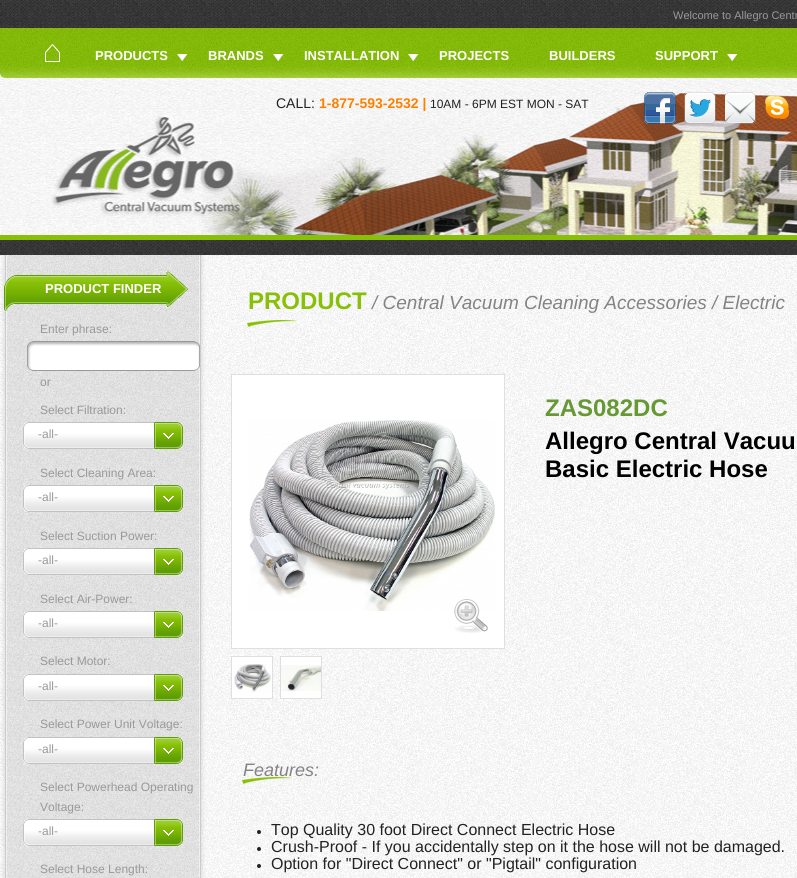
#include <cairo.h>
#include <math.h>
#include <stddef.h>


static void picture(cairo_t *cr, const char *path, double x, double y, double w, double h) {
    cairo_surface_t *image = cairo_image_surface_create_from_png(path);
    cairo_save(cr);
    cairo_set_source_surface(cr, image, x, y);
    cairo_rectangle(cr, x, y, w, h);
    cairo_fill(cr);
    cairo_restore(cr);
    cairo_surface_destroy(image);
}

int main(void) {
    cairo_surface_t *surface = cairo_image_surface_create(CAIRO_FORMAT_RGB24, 797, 878);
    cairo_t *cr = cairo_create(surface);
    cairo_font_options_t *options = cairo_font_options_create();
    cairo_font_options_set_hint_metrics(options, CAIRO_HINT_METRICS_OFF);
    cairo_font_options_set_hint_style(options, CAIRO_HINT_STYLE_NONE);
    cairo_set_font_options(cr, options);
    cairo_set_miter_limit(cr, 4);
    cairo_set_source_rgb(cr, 1, 1, 1);
    cairo_paint(cr);
    picture(cr, "img1.png", 0, 0, 797, 28);
    cairo_select_font_face(cr, "Liberation Sans", CAIRO_FONT_SLANT_NORMAL, CAIRO_FONT_WEIGHT_NORMAL);
    cairo_set_font_size(cr, 11);
    cairo_set_source_rgb(cr, 0.6, 0.6, 0.6);
    cairo_move_to(cr, 673, 19);
    cairo_show_text(cr, "Welcome to Allegro Centr");
    picture(cr, "img8.png", 0, 73, 797, 162);
    picture(cr, "img2.png", 0, 28, 797, 50);
    picture(cr, "img3.png", 45, 44, 15, 18);
    picture(cr, "img4.png", 177, 54, 11, 7);
    cairo_select_font_face(cr, "Liberation Sans", CAIRO_FONT_SLANT_NORMAL, CAIRO_FONT_WEIGHT_BOLD);
    cairo_set_font_size(cr, 13);
    cairo_set_source_rgb(cr, 1, 0.996, 0.996);
    cairo_move_to(cr, 95, 60);
    cairo_show_text(cr, "PRODUCTS");
    picture(cr, "img5.png", 273, 54, 11, 7);
    cairo_move_to(cr, 208, 60);
    cairo_show_text(cr, "BRANDS");
    picture(cr, "img6.png", 408, 54, 11, 7);
    cairo_move_to(cr, 304, 60);
    cairo_show_text(cr, "INSTALLATION");
    cairo_move_to(cr, 439, 60);
    cairo_show_text(cr, "PROJECTS");
    cairo_move_to(cr, 549, 60);
    cairo_show_text(cr, "BUILDERS");
    picture(cr, "img7.png", 727, 54, 11, 7);
    cairo_move_to(cr, 655, 60);
    cairo_show_text(cr, "SUPPORT");
    cairo_select_font_face(cr, "Liberation Sans", CAIRO_FONT_SLANT_NORMAL, CAIRO_FONT_WEIGHT_NORMAL);
    cairo_set_font_size(cr, 14);
    cairo_set_source_rgb(cr, 0.133, 0.133, 0.133);
    cairo_move_to(cr, 276, 108);
    cairo_show_text(cr, "CALL:");
    cairo_select_font_face(cr, "Liberation Sans", CAIRO_FONT_SLANT_NORMAL, CAIRO_FONT_WEIGHT_BOLD);
    cairo_set_source_rgb(cr, 1, 0.498, 0);
    cairo_move_to(cr, 319, 108);
    cairo_show_text(cr, "1-877-593-2532 |");
    cairo_select_font_face(cr, "Liberation Sans", CAIRO_FONT_SLANT_NORMAL, CAIRO_FONT_WEIGHT_NORMAL);
    cairo_set_font_size(cr, 12);
    cairo_set_source_rgb(cr, 0.133, 0.133, 0.133);
    cairo_move_to(cr, 430, 108);
    cairo_show_text(cr, "10AM - 6PM EST MON - SAT");
    picture(cr, "img9.png", 644, 92, 32, 32);
    picture(cr, "img10.png", 684, 92, 32, 32);
    picture(cr, "img11.png", 725, 92, 31, 32);
    picture(cr, "img12.png", 765, 95, 24, 24);
    picture(cr, "img13.png", 0, 240, 797, 15);
    cairo_set_source_rgb(cr, 0.533, 0.753, 0.035);
    cairo_rectangle(cr, 0, 235, 797, 5);
    cairo_fill(cr);
    picture(cr, "img14.png", 206, 255, 591, 623);
    picture(cr, "img15.png", 0, 255, 206, 623);
    picture(cr, "img16.png", 4, 271, 184, 41);
    cairo_select_font_face(cr, "Liberation Sans", CAIRO_FONT_SLANT_NORMAL, CAIRO_FONT_WEIGHT_BOLD);
    cairo_set_font_size(cr, 13);
    cairo_set_source_rgb(cr, 1, 0.996, 0.996);
    cairo_move_to(cr, 45, 293);
    cairo_show_text(cr, "PRODUCT FINDER");
    cairo_select_font_face(cr, "Liberation Sans", CAIRO_FONT_SLANT_NORMAL, CAIRO_FONT_WEIGHT_NORMAL);
    cairo_set_font_size(cr, 12);
    cairo_set_source_rgb(cr, 0.6, 0.6, 0.6);
    cairo_move_to(cr, 40, 333);
    cairo_show_text(cr, "Enter phrase:");
    picture(cr, "img17.png", 27, 341, 7, 30);
    picture(cr, "img18.png", 34, 341, 159, 30);
    picture(cr, "img19.png", 193, 341, 7, 30);
    cairo_move_to(cr, 40, 386);
    cairo_show_text(cr, "or");
    cairo_move_to(cr, 40, 414);
    cairo_show_text(cr, "Select Filtration:");
    picture(cr, "img20.png", 23, 422, 160, 27);
    cairo_move_to(cr, 38, 438);
    cairo_show_text(cr, "-all-");
    cairo_move_to(cr, 40, 477);
    cairo_show_text(cr, "Select Cleaning Area:");
    picture(cr, "img21.png", 23, 485, 160, 27);
    cairo_move_to(cr, 38, 501);
    cairo_show_text(cr, "-all-");
    cairo_move_to(cr, 40, 540);
    cairo_show_text(cr, "Select Suction Power:");
    picture(cr, "img22.png", 23, 548, 160, 27);
    cairo_move_to(cr, 38, 564);
    cairo_show_text(cr, "-all-");
    cairo_move_to(cr, 40, 603);
    cairo_show_text(cr, "Select Air-Power:");
    picture(cr, "img23.png", 23, 611, 160, 27);
    cairo_move_to(cr, 38, 627);
    cairo_show_text(cr, "-all-");
    cairo_move_to(cr, 40, 665);
    cairo_show_text(cr, "Select Motor:");
    picture(cr, "img24.png", 23, 674, 160, 27);
    cairo_move_to(cr, 38, 690);
    cairo_show_text(cr, "-all-");
    cairo_move_to(cr, 40, 728);
    cairo_show_text(cr, "Select Power Unit Voltage:");
    picture(cr, "img20.png", 23, 737, 160, 27);
    cairo_move_to(cr, 38, 753);
    cairo_show_text(cr, "-all-");
    cairo_move_to(cr, 40, 791);
    cairo_show_text(cr, "Select Powerhead Operating");
    cairo_move_to(cr, 40, 811);
    cairo_show_text(cr, "Voltage:");
    picture(cr, "img25.png", 23, 819, 160, 27);
    cairo_move_to(cr, 38, 835);
    cairo_show_text(cr, "-all-");
    cairo_move_to(cr, 40, 873);
    cairo_show_text(cr, "Select Hose Length:");
    picture(cr, "img26.png", 247, 320, 50, 7);
    cairo_select_font_face(cr, "Liberation Sans", CAIRO_FONT_SLANT_NORMAL, CAIRO_FONT_WEIGHT_BOLD);
    cairo_set_font_size(cr, 24);
    cairo_set_source_rgb(cr, 0.533, 0.753, 0.035);
    cairo_move_to(cr, 248, 309);
    cairo_show_text(cr, "PRODUCT");
    cairo_select_font_face(cr, "Liberation Sans", CAIRO_FONT_SLANT_ITALIC, CAIRO_FONT_WEIGHT_NORMAL);
    cairo_set_font_size(cr, 19);
    cairo_set_source_rgb(cr, 0.514, 0.514, 0.522);
    cairo_move_to(cr, 372, 309);
    cairo_show_text(cr, "/ Central Vacuum Cleaning Accessories / Electric");
    cairo_set_source_rgb(cr, 1, 1, 1);
    cairo_rectangle(cr, 231.5, 374.5, 273, 274);
    cairo_fill_preserve(cr);
    cairo_set_source_rgb(cr, 0.875, 0.875, 0.875);
    cairo_set_line_width(cr, 1);
    cairo_stroke(cr);
    picture(cr, "img27.png", 249, 420, 246, 191);
    picture(cr, "img28.png", 454, 599, 34, 34);
    cairo_set_source_rgb(cr, 1, 1, 1);
    cairo_rectangle(cr, 231.5, 656.5, 41, 42);
    cairo_fill_preserve(cr);
    cairo_set_source_rgb(cr, 0.875, 0.875, 0.875);
    cairo_stroke(cr);
    picture(cr, "img29.png", 234, 664, 37, 28);
    cairo_set_source_rgb(cr, 1, 1, 1);
    cairo_rectangle(cr, 280.5, 656.5, 41, 42);
    cairo_fill_preserve(cr);
    cairo_set_source_rgb(cr, 0.875, 0.875, 0.875);
    cairo_stroke(cr);
    picture(cr, "img30.png", 281, 665, 40, 26);
    cairo_select_font_face(cr, "Liberation Sans", CAIRO_FONT_SLANT_NORMAL, CAIRO_FONT_WEIGHT_BOLD);
    cairo_set_font_size(cr, 24);
    cairo_set_source_rgb(cr, 0.4, 0.6, 0.204);
    cairo_move_to(cr, 545, 416);
    cairo_show_text(cr, "ZAS082DC");
    cairo_set_source_rgb(cr, 0, 0, 0);
    cairo_move_to(cr, 545, 449);
    cairo_show_text(cr, "Allegro Central Vacuu");
    cairo_move_to(cr, 545, 477);
    cairo_show_text(cr, "Basic Electric Hose");
    picture(cr, "img31.png", 242, 777, 50, 7);
    cairo_select_font_face(cr, "Liberation Sans", CAIRO_FONT_SLANT_ITALIC, CAIRO_FONT_WEIGHT_NORMAL);
    cairo_set_font_size(cr, 18);
    cairo_set_source_rgb(cr, 0.514, 0.514, 0.522);
    cairo_move_to(cr, 243, 776);
    cairo_show_text(cr, "Features:");
    cairo_set_source_rgb(cr, 0.133, 0.133, 0.133);
    cairo_new_path(cr);
    cairo_arc(cr, 259, 832, 2, 0, 2 * M_PI);
    cairo_fill(cr);
    cairo_select_font_face(cr, "Liberation Sans", CAIRO_FONT_SLANT_NORMAL, CAIRO_FONT_WEIGHT_NORMAL);
    cairo_set_font_size(cr, 16);
    cairo_move_to(cr, 271, 835);
    cairo_show_text(cr, "Top Quality 30 foot Direct Connect Electric Hose");
    cairo_new_path(cr);
    cairo_arc(cr, 259, 849, 2, 0, 2 * M_PI);
    cairo_fill(cr);
    cairo_move_to(cr, 271, 852);
    cairo_show_text(cr, "Crush-Proof - If you accidentally step on it the hose will not be damaged.");
    cairo_new_path(cr);
    cairo_arc(cr, 259, 866, 2, 0, 2 * M_PI);
    cairo_fill(cr);
    cairo_move_to(cr, 271, 869);
    cairo_show_text(cr, "Option for \"Direct Connect\" or \"Pigtail\" configuration");
    cairo_surface_write_to_png(surface, "page.png");
    cairo_font_options_destroy(options);
    cairo_destroy(cr);
    cairo_surface_destroy(surface);
    return 0;
}
